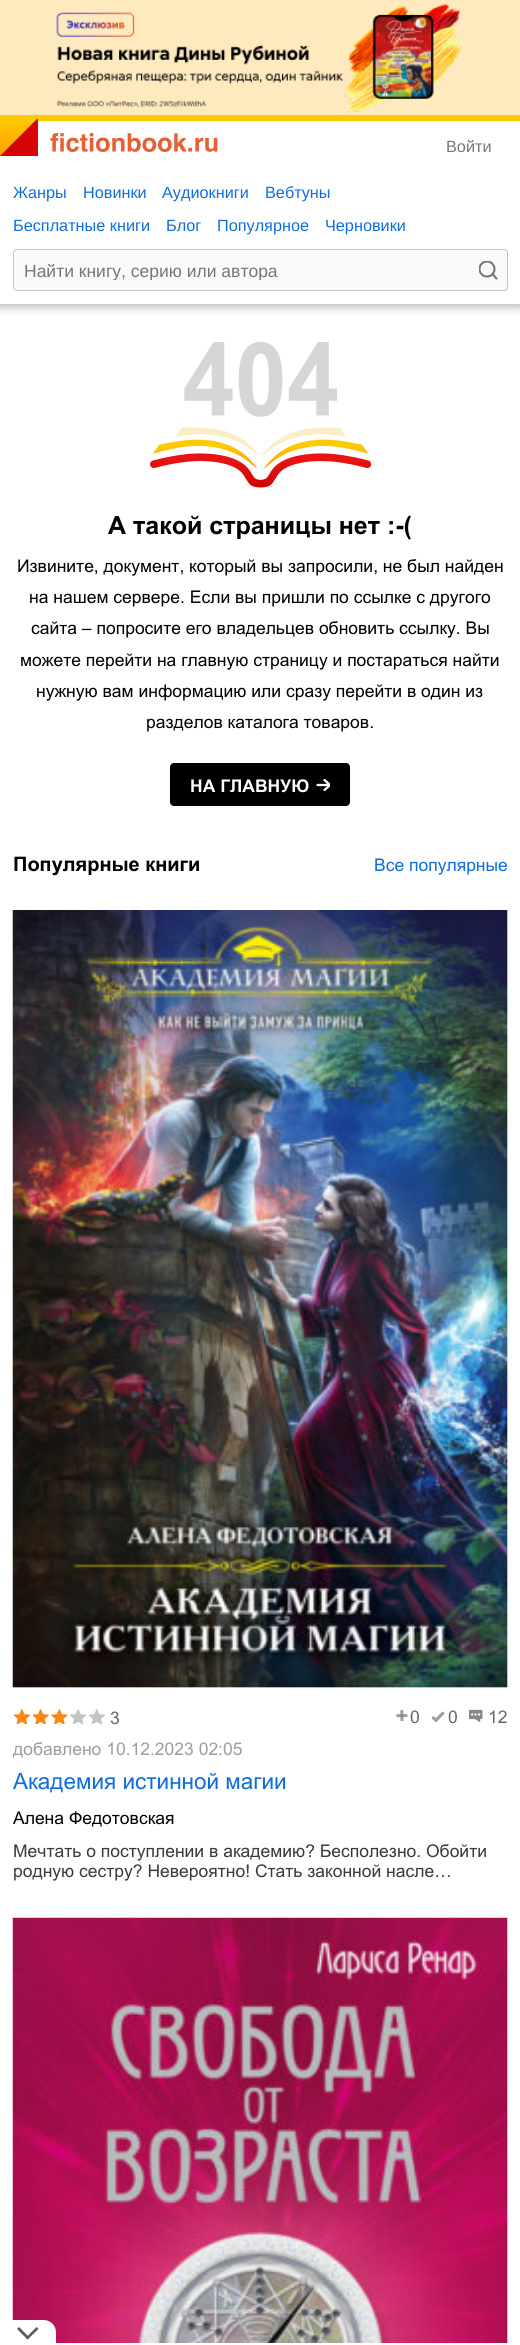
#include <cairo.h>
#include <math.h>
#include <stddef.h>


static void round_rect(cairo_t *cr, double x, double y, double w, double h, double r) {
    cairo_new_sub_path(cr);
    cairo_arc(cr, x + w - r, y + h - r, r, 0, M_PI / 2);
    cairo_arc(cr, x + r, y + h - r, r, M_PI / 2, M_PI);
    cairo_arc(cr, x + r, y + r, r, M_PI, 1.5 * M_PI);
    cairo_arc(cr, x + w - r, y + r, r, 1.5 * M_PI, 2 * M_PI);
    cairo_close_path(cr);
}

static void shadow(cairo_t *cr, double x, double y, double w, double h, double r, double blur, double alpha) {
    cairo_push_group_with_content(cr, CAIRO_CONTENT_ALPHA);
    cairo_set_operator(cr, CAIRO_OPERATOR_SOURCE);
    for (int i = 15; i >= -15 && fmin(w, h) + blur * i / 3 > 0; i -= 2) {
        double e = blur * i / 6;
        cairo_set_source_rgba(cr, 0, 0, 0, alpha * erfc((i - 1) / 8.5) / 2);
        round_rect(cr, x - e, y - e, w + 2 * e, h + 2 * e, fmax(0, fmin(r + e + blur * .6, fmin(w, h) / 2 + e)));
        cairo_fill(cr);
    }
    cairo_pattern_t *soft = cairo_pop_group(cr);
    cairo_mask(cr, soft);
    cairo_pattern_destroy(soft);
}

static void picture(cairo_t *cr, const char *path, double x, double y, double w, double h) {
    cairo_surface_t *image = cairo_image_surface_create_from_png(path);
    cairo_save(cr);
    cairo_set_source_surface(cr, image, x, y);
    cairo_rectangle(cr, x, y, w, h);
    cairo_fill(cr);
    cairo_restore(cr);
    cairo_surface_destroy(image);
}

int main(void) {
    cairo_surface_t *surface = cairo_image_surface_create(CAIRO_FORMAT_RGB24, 520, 2345);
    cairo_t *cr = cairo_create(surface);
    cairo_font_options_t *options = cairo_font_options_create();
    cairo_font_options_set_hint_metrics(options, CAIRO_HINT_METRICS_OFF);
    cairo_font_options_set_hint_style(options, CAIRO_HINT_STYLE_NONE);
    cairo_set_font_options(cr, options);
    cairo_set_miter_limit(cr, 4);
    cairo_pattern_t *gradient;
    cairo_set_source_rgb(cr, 1, 1, 1);
    cairo_paint(cr);
    cairo_set_source_rgb(cr, 0, 0, 0);
    shadow(cr, -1, 116, 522, 192, 0, 4, 0.25);
    picture(cr, "img1.png", 0, 0, 520, 115);
    cairo_set_source_rgb(cr, 1, 1, 1);
    cairo_rectangle(cr, 0, 121, 520, 183);
    cairo_fill(cr);
    cairo_set_source_rgb(cr, 1, 0.788, 0);
    cairo_rectangle(cr, 0, 115, 520, 6);
    cairo_fill(cr);
    gradient = cairo_pattern_create_linear(19, 156, 19, 119);
    cairo_pattern_add_color_stop_rgba(gradient, 0, 1, 0.62, 0, 1);
    cairo_pattern_add_color_stop_rgba(gradient, 1, 1, 0.788, 0, 1);
    cairo_set_source(cr, gradient);
    cairo_pattern_destroy(gradient);
    cairo_rectangle(cr, 0, 121, 37, 35);
    cairo_fill(cr);
    cairo_save(cr);
    cairo_rectangle(cr, 0, 119, 38, 37);
    cairo_clip(cr);
    gradient = cairo_pattern_create_linear(-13, 169, 163, 169);
    cairo_pattern_add_color_stop_rgba(gradient, 0, 0.812, 0, 0.008, 1);
    cairo_pattern_add_color_stop_rgba(gradient, 1, 0.925, 0.082, 0.086, 1);
    cairo_set_source(cr, gradient);
    cairo_pattern_destroy(gradient);
    cairo_new_path(cr);
    cairo_move_to(cr, 75, 81);
    cairo_line_to(cr, 163, 169);
    cairo_line_to(cr, 75, 258);
    cairo_line_to(cr, -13, 169);
    cairo_close_path(cr);
    cairo_fill(cr);
    cairo_restore(cr);
    picture(cr, "img2.png", 50, 133, 168, 19);
    cairo_select_font_face(cr, "Liberation Sans", CAIRO_FONT_SLANT_NORMAL, CAIRO_FONT_WEIGHT_NORMAL);
    cairo_set_font_size(cr, 16.25);
    cairo_set_source_rgb(cr, 0.463, 0.459, 0.475);
    cairo_move_to(cr, 446, 152);
    cairo_show_text(cr, "Войти");
    cairo_set_source_rgb(cr, 0.063, 0.431, 0.863);
    cairo_move_to(cr, 13, 198);
    cairo_show_text(cr, "Жанры");
    cairo_move_to(cr, 83, 198);
    cairo_show_text(cr, "Новинки");
    cairo_move_to(cr, 162, 198);
    cairo_show_text(cr, "Аудиокниги");
    cairo_move_to(cr, 265, 198);
    cairo_show_text(cr, "Вебтуны");
    cairo_move_to(cr, 13, 231);
    cairo_show_text(cr, "Бесплатные книги");
    cairo_move_to(cr, 166, 231);
    cairo_show_text(cr, "Блог");
    cairo_move_to(cr, 217, 231);
    cairo_show_text(cr, "Популярное");
    cairo_move_to(cr, 325, 231);
    cairo_show_text(cr, "Черновики");
    cairo_set_source_rgb(cr, 0.98, 0.98, 0.98);
    round_rect(cr, 13.5, 249.5, 494, 41, 3.5);
    cairo_fill_preserve(cr);
    cairo_set_source_rgb(cr, 0.769, 0.769, 0.776);
    cairo_set_line_width(cr, 1);
    cairo_stroke(cr);
    cairo_save(cr);
    cairo_rectangle(cr, 24, 260, 447, 20);
    cairo_clip(cr);
    cairo_set_font_size(cr, 17.5);
    cairo_set_source_rgb(cr, 0.463, 0.459, 0.475);
    cairo_move_to(cr, 24, 277);
    cairo_show_text(cr, "Найти книгу, серию или автора");
    cairo_restore(cr);
    cairo_new_path(cr);
    cairo_move_to(cr, 492.5, 274);
    cairo_line_to(cr, 496.5, 278.5);
    cairo_set_source_rgb(cr, 0.463, 0.459, 0.475);
    cairo_set_line_width(cr, 2.1);
    cairo_set_line_cap(cr, CAIRO_LINE_CAP_ROUND);
    cairo_set_line_join(cr, CAIRO_LINE_JOIN_ROUND);
    cairo_stroke(cr);
    cairo_save(cr);
    cairo_rectangle(cr, 479, 261, 19, 19);
    cairo_clip(cr);
    cairo_arc(cr, 487, 269, 7.5, 0, 2 * M_PI);
    cairo_set_line_cap(cr, CAIRO_LINE_CAP_BUTT);
    cairo_set_line_join(cr, CAIRO_LINE_JOIN_MITER);
    cairo_stroke(cr);
    cairo_restore(cr);
    picture(cr, "img3.png", 150, 342, 221, 146);
    cairo_select_font_face(cr, "Arial", CAIRO_FONT_SLANT_NORMAL, CAIRO_FONT_WEIGHT_BOLD);
    cairo_set_font_size(cr, 25);
    cairo_set_source_rgb(cr, 0, 0, 0);
    cairo_move_to(cr, 108, 534);
    cairo_show_text(cr, "А такой страницы нет :-(");
    cairo_select_font_face(cr, "Arial", CAIRO_FONT_SLANT_NORMAL, CAIRO_FONT_WEIGHT_NORMAL);
    cairo_set_font_size(cr, 17.5);
    cairo_move_to(cr, 17, 572);
    cairo_show_text(cr, "Извините, документ, который вы запросили, не был найден");
    cairo_move_to(cr, 29, 603);
    cairo_show_text(cr, "на нашем сервере. Если вы пришли по ссылке с другого");
    cairo_move_to(cr, 31, 634);
    cairo_show_text(cr, "сайта – попросите его владельцев обновить ссылку. Вы");
    cairo_move_to(cr, 20, 666);
    cairo_show_text(cr, "можете перейти на главную страницу и постараться найти");
    cairo_move_to(cr, 36, 697);
    cairo_show_text(cr, "нужную вам информацию или сразу перейти в один из");
    cairo_move_to(cr, 146, 728);
    cairo_show_text(cr, "разделов каталога товаров.");
    round_rect(cr, 170, 763, 180, 43, 4);
    cairo_fill(cr);
    cairo_select_font_face(cr, "Arial", CAIRO_FONT_SLANT_NORMAL, CAIRO_FONT_WEIGHT_BOLD);
    cairo_set_source_rgb(cr, 1, 1, 1);
    cairo_move_to(cr, 190, 792);
    cairo_show_text(cr, "НА ГЛАВНУЮ");
    cairo_save(cr);
    cairo_rectangle(cr, 316, 779, 14, 12);
    cairo_clip(cr);
    cairo_new_path(cr);
    cairo_move_to(cr, 330, 785);
    cairo_line_to(cr, 317.5, 785);
    cairo_move_to(cr, 330, 785);
    cairo_line_to(cr, 324.5, 790);
    cairo_move_to(cr, 330, 785);
    cairo_line_to(cr, 324.5, 780);
    cairo_set_line_width(cr, 2.3);
    cairo_stroke(cr);
    cairo_restore(cr);
    cairo_set_font_size(cr, 20);
    cairo_set_source_rgb(cr, 0, 0, 0);
    cairo_move_to(cr, 13, 871);
    cairo_show_text(cr, "Популярные книги");
    cairo_select_font_face(cr, "Arial", CAIRO_FONT_SLANT_NORMAL, CAIRO_FONT_WEIGHT_NORMAL);
    cairo_set_font_size(cr, 17.5);
    cairo_set_source_rgb(cr, 0.063, 0.431, 0.863);
    cairo_move_to(cr, 374, 871);
    cairo_show_text(cr, "Все популярные");
    cairo_set_source_rgb(cr, 0.933, 0.933, 0.933);
    cairo_rectangle(cr, 13, 910, 495, 778);
    cairo_fill(cr);
    picture(cr, "img4.png", 12, 910, 496, 778);
    picture(cr, "img5.png", 14, 1709, 16, 15);
    picture(cr, "img6.png", 33, 1709, 16, 15);
    picture(cr, "img7.png", 51, 1709, 17, 15);
    picture(cr, "img8.png", 70, 1709, 16, 15);
    picture(cr, "img9.png", 89, 1709, 16, 15);
    cairo_set_source_rgb(cr, 0.4, 0.4, 0.4);
    cairo_move_to(cr, 110, 1724);
    cairo_show_text(cr, "3");
    picture(cr, "img10.png", 396, 1710, 12, 11);
    cairo_move_to(cr, 410, 1723);
    cairo_show_text(cr, "0");
    picture(cr, "img11.png", 431, 1711, 14, 12);
    cairo_move_to(cr, 448, 1723);
    cairo_show_text(cr, "0");
    picture(cr, "img12.png", 469, 1709, 14, 13);
    cairo_move_to(cr, 488, 1723);
    cairo_show_text(cr, "12");
    cairo_set_source_rgb(cr, 0.616, 0.612, 0.624);
    cairo_move_to(cr, 13, 1755);
    cairo_show_text(cr, "добавлено 10.12.2023 02:05");
    cairo_set_font_size(cr, 22.5);
    cairo_set_source_rgb(cr, 0.063, 0.431, 0.863);
    cairo_move_to(cr, 13, 1789);
    cairo_show_text(cr, "Академия истинной магии");
    cairo_set_font_size(cr, 17.5);
    cairo_set_source_rgb(cr, 0, 0, 0);
    cairo_move_to(cr, 13, 1824);
    cairo_show_text(cr, "Алена Федотовская");
    cairo_set_source_rgb(cr, 0.231, 0.224, 0.247);
    cairo_move_to(cr, 13, 1857);
    cairo_show_text(cr, "Мечтать о поступлении в академию? Бесполезно. Обойти");
    cairo_move_to(cr, 13, 1877);
    cairo_show_text(cr, "родную сестру? Невероятно! Стать законной насле…");
    cairo_set_source_rgb(cr, 0.933, 0.933, 0.933);
    cairo_rectangle(cr, 507, 1918, 1, 425);
    cairo_fill(cr);
    picture(cr, "img13.png", 12, 1917, 496, 426);
    cairo_set_source_rgb(cr, 1, 1, 1);
    cairo_new_path(cr);
    cairo_move_to(cr, 0, 2320);
    cairo_line_to(cr, 43.5, 2320);
    cairo_curve_to(cr, 50.5, 2320, 56, 2325.5, 56, 2332.5);
    cairo_line_to(cr, 56, 2345);
    cairo_line_to(cr, 0, 2345);
    cairo_close_path(cr);
    cairo_fill(cr);
    cairo_set_source_rgb(cr, 0.361, 0.361, 0.357);
    cairo_new_path(cr);
    cairo_move_to(cr, 36.5, 2327);
    cairo_line_to(cr, 38.5, 2329);
    cairo_line_to(cr, 27.5, 2339.5);
    cairo_line_to(cr, 26, 2337.5);
    cairo_close_path(cr);
    cairo_fill(cr);
    cairo_new_path(cr);
    cairo_move_to(cr, 19, 2327);
    cairo_line_to(cr, 29.5, 2337.5);
    cairo_line_to(cr, 27.5, 2339.5);
    cairo_line_to(cr, 17, 2329);
    cairo_close_path(cr);
    cairo_fill(cr);
    cairo_surface_write_to_png(surface, "page.png");
    cairo_font_options_destroy(options);
    cairo_destroy(cr);
    cairo_surface_destroy(surface);
    return 0;
}
